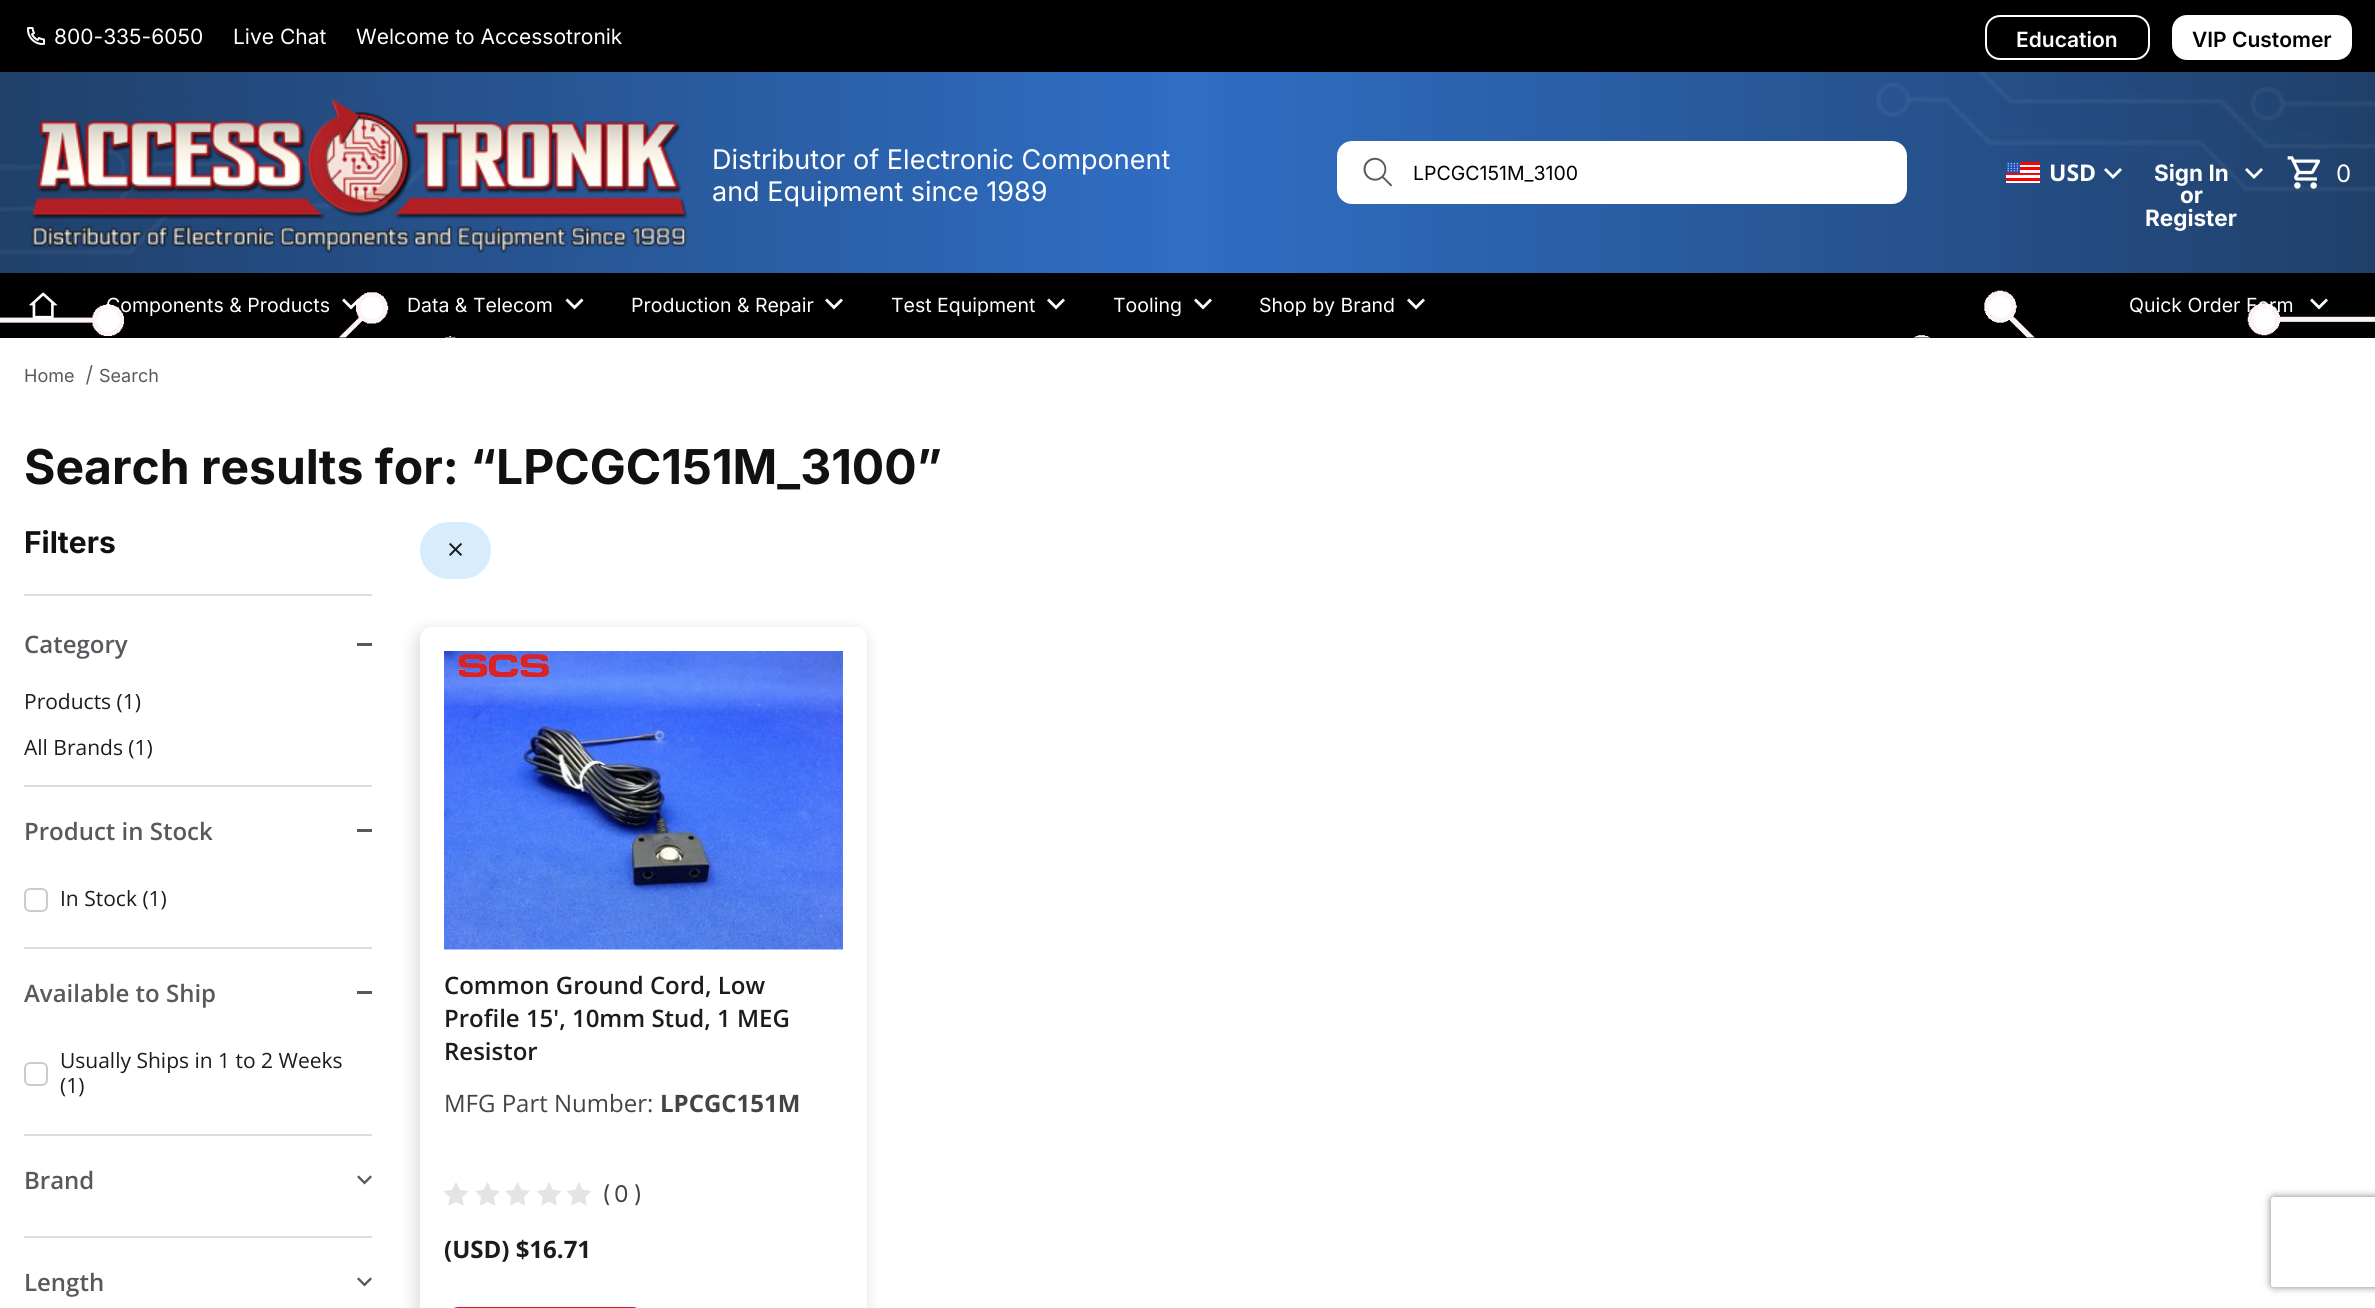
#include <cairo.h>
#include <math.h>
#include <stddef.h>


static void round_rect(cairo_t *cr, double x, double y, double w, double h, double r) {
    cairo_new_sub_path(cr);
    cairo_arc(cr, x + w - r, y + h - r, r, 0, M_PI / 2);
    cairo_arc(cr, x + r, y + h - r, r, M_PI / 2, M_PI);
    cairo_arc(cr, x + r, y + r, r, M_PI, 1.5 * M_PI);
    cairo_arc(cr, x + w - r, y + r, r, 1.5 * M_PI, 2 * M_PI);
    cairo_close_path(cr);
}

static void shadow(cairo_t *cr, double x, double y, double w, double h, double r, double blur, double alpha) {
    cairo_push_group_with_content(cr, CAIRO_CONTENT_ALPHA);
    cairo_set_operator(cr, CAIRO_OPERATOR_SOURCE);
    for (int i = 15; i >= -15 && fmin(w, h) + blur * i / 3 > 0; i -= 2) {
        double e = blur * i / 6;
        cairo_set_source_rgba(cr, 0, 0, 0, alpha * erfc((i - 1) / 8.5) / 2);
        round_rect(cr, x - e, y - e, w + 2 * e, h + 2 * e, fmax(0, fmin(r + e + blur * .6, fmin(w, h) / 2 + e)));
        cairo_fill(cr);
    }
    cairo_pattern_t *soft = cairo_pop_group(cr);
    cairo_mask(cr, soft);
    cairo_pattern_destroy(soft);
}

static void picture(cairo_t *cr, const char *path, double x, double y, double w, double h) {
    cairo_surface_t *image = cairo_image_surface_create_from_png(path);
    cairo_save(cr);
    cairo_set_source_surface(cr, image, x, y);
    cairo_rectangle(cr, x, y, w, h);
    cairo_fill(cr);
    cairo_restore(cr);
    cairo_surface_destroy(image);
}

int main(void) {
    cairo_surface_t *surface = cairo_image_surface_create(CAIRO_FORMAT_RGB24, 2375, 1308);
    cairo_t *cr = cairo_create(surface);
    cairo_font_options_t *options = cairo_font_options_create();
    cairo_font_options_set_hint_metrics(options, CAIRO_HINT_METRICS_OFF);
    cairo_font_options_set_hint_style(options, CAIRO_HINT_STYLE_NONE);
    cairo_set_font_options(cr, options);
    cairo_set_miter_limit(cr, 4);
    cairo_pattern_t *gradient;
    cairo_set_source_rgb(cr, 1, 1, 1);
    cairo_paint(cr);
    cairo_set_source_rgb(cr, 0, 0, 0);
    cairo_rectangle(cr, 0, 0, 2375, 72);
    cairo_fill(cr);
    picture(cr, "img1.png", 27, 27, 18, 18);
    cairo_select_font_face(cr, "Inter", CAIRO_FONT_SLANT_NORMAL, CAIRO_FONT_WEIGHT_NORMAL);
    cairo_set_font_size(cr, 21);
    cairo_set_source_rgb(cr, 1, 1, 1);
    cairo_move_to(cr, 54, 44);
    cairo_show_text(cr, "800-335-6050");
    cairo_move_to(cr, 233, 44);
    cairo_show_text(cr, "Live Chat");
    cairo_move_to(cr, 356, 44);
    cairo_show_text(cr, "Welcome to Accessotronik");
    round_rect(cr, 1986, 16, 163, 43, 14);
    cairo_stroke(cr);
    cairo_select_font_face(cr, "Inter SemiBold", CAIRO_FONT_SLANT_NORMAL, CAIRO_FONT_WEIGHT_NORMAL);
    cairo_move_to(cr, 2016, 47);
    cairo_show_text(cr, "Education");
    round_rect(cr, 2173, 16, 178, 43, 14);
    cairo_fill_preserve(cr);
    cairo_stroke(cr);
    cairo_set_source_rgb(cr, 0, 0, 0);
    cairo_move_to(cr, 2192, 47);
    cairo_show_text(cr, "VIP Customer");
    gradient = cairo_pattern_create_linear(0, 173, 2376, 172);
    cairo_pattern_add_color_stop_rgba(gradient, 0, 0.125, 0.251, 0.416, 1);
    cairo_pattern_add_color_stop_rgba(gradient, 0.5, 0.188, 0.431, 0.769, 1);
    cairo_pattern_add_color_stop_rgba(gradient, 1, 0.125, 0.251, 0.416, 1);
    cairo_set_source(cr, gradient);
    cairo_pattern_destroy(gradient);
    cairo_rectangle(cr, 0, 72, 2375, 201);
    cairo_fill(cr);
    picture(cr, "img2.png", 0, 137, 500, 118);
    picture(cr, "img3.png", 1876, 72, 499, 120);
    picture(cr, "img4.png", 31, 98, 657, 155);
    cairo_select_font_face(cr, "Inter", CAIRO_FONT_SLANT_NORMAL, CAIRO_FONT_WEIGHT_NORMAL);
    cairo_set_font_size(cr, 27);
    cairo_set_source_rgb(cr, 1, 1, 1);
    cairo_move_to(cr, 712, 169);
    cairo_show_text(cr, "Distributor of Electronic Component");
    cairo_move_to(cr, 712, 201);
    cairo_show_text(cr, "and Equipment since 1989");
    round_rect(cr, 1338, 142, 568, 61, 14);
    cairo_fill_preserve(cr);
    cairo_stroke(cr);
    picture(cr, "img5.png", 1363, 157, 29, 30);
    cairo_set_font_size(cr, 19.5);
    cairo_set_source_rgb(cr, 0, 0, 0);
    cairo_move_to(cr, 1413, 180);
    cairo_show_text(cr, "LPCGC151M_3100");
    picture(cr, "img6.png", 2006, 162, 34, 21);
    cairo_select_font_face(cr, "Open Sans", CAIRO_FONT_SLANT_NORMAL, CAIRO_FONT_WEIGHT_BOLD);
    cairo_set_font_size(cr, 23);
    cairo_set_source_rgb(cr, 1, 1, 1);
    cairo_move_to(cr, 2049, 181);
    cairo_show_text(cr, "USD");
    cairo_new_path(cr);
    cairo_move_to(cr, 2113, 175);
    cairo_line_to(cr, 2120, 168);
    cairo_line_to(cr, 2122, 170);
    cairo_line_to(cr, 2113, 179);
    cairo_line_to(cr, 2104, 170);
    cairo_line_to(cr, 2106, 168);
    cairo_close_path(cr);
    cairo_fill(cr);
    cairo_select_font_face(cr, "Inter", CAIRO_FONT_SLANT_NORMAL, CAIRO_FONT_WEIGHT_BOLD);
    cairo_set_font_size(cr, 22.5);
    cairo_move_to(cr, 2154, 181);
    cairo_show_text(cr, "Sign In");
    cairo_move_to(cr, 2180, 203);
    cairo_show_text(cr, "or");
    cairo_move_to(cr, 2145, 226);
    cairo_show_text(cr, "Register");
    cairo_new_path(cr);
    cairo_move_to(cr, 2254, 175);
    cairo_line_to(cr, 2261, 168);
    cairo_line_to(cr, 2263, 170);
    cairo_line_to(cr, 2254, 179);
    cairo_line_to(cr, 2245, 170);
    cairo_line_to(cr, 2247, 168);
    cairo_close_path(cr);
    cairo_fill(cr);
    picture(cr, "img7.png", 2287, 156, 34, 33);
    cairo_select_font_face(cr, "Inter", CAIRO_FONT_SLANT_NORMAL, CAIRO_FONT_WEIGHT_NORMAL);
    cairo_set_font_size(cr, 24);
    cairo_move_to(cr, 2336, 182);
    cairo_show_text(cr, "0");
    cairo_set_source_rgb(cr, 0, 0, 0);
    cairo_rectangle(cr, 0, 273, 2375, 65);
    cairo_fill(cr);
    picture(cr, "img8.png", 0, 290, 2375, 48);
    picture(cr, "img9.png", 29, 292, 29, 27);
    cairo_set_font_size(cr, 19.5);
    cairo_set_source_rgb(cr, 1, 1, 1);
    cairo_move_to(cr, 106, 312);
    cairo_show_text(cr, "Components & Products");
    cairo_new_path(cr);
    cairo_move_to(cr, 344, 298.5);
    cairo_line_to(cr, 342, 300.5);
    cairo_line_to(cr, 351, 309.5);
    cairo_line_to(cr, 360, 300.5);
    cairo_line_to(cr, 358, 298.5);
    cairo_line_to(cr, 351, 305.5);
    cairo_close_path(cr);
    cairo_fill(cr);
    cairo_move_to(cr, 407, 312);
    cairo_show_text(cr, "Data & Telecom");
    cairo_new_path(cr);
    cairo_move_to(cr, 567.5, 298.5);
    cairo_line_to(cr, 565.5, 300.5);
    cairo_line_to(cr, 574.5, 309.5);
    cairo_line_to(cr, 583.5, 300.5);
    cairo_line_to(cr, 581.5, 298.5);
    cairo_line_to(cr, 574.5, 305.5);
    cairo_close_path(cr);
    cairo_fill(cr);
    cairo_move_to(cr, 631, 312);
    cairo_show_text(cr, "Production & Repair");
    cairo_new_path(cr);
    cairo_move_to(cr, 827, 298.5);
    cairo_line_to(cr, 825, 300.5);
    cairo_line_to(cr, 834, 309.5);
    cairo_line_to(cr, 843, 300.5);
    cairo_line_to(cr, 841, 298.5);
    cairo_line_to(cr, 834, 305.5);
    cairo_close_path(cr);
    cairo_fill(cr);
    cairo_move_to(cr, 891, 312);
    cairo_show_text(cr, "Test Equipment");
    cairo_new_path(cr);
    cairo_move_to(cr, 1049, 298.5);
    cairo_line_to(cr, 1047, 300.5);
    cairo_line_to(cr, 1056, 309.5);
    cairo_line_to(cr, 1065, 300.5);
    cairo_line_to(cr, 1063, 298.5);
    cairo_line_to(cr, 1056, 305.5);
    cairo_close_path(cr);
    cairo_fill(cr);
    cairo_move_to(cr, 1113, 312);
    cairo_show_text(cr, "Tooling");
    cairo_new_path(cr);
    cairo_move_to(cr, 1196, 298.5);
    cairo_line_to(cr, 1194, 300.5);
    cairo_line_to(cr, 1203, 309.5);
    cairo_line_to(cr, 1212, 300.5);
    cairo_line_to(cr, 1210, 298.5);
    cairo_line_to(cr, 1203, 305.5);
    cairo_close_path(cr);
    cairo_fill(cr);
    cairo_move_to(cr, 1259, 312);
    cairo_show_text(cr, "Shop by Brand");
    cairo_new_path(cr);
    cairo_move_to(cr, 1409, 298.5);
    cairo_line_to(cr, 1407, 300.5);
    cairo_line_to(cr, 1416, 309.5);
    cairo_line_to(cr, 1425, 300.5);
    cairo_line_to(cr, 1423, 298.5);
    cairo_line_to(cr, 1416, 305.5);
    cairo_close_path(cr);
    cairo_fill(cr);
    cairo_move_to(cr, 2129, 312);
    cairo_show_text(cr, "Quick Order Form");
    cairo_new_path(cr);
    cairo_move_to(cr, 2312, 298.5);
    cairo_line_to(cr, 2310, 300.5);
    cairo_line_to(cr, 2319, 309.5);
    cairo_line_to(cr, 2328, 300.5);
    cairo_line_to(cr, 2326, 298.5);
    cairo_line_to(cr, 2319, 305.5);
    cairo_close_path(cr);
    cairo_fill(cr);
    cairo_set_font_size(cr, 18);
    cairo_set_source_rgb(cr, 0.341, 0.353, 0.365);
    cairo_move_to(cr, 24, 382);
    cairo_show_text(cr, "Home");
    cairo_new_path(cr);
    cairo_move_to(cr, 91, 365);
    cairo_line_to(cr, 92.5, 365.5);
    cairo_line_to(cr, 87.5, 384.5);
    cairo_line_to(cr, 86, 384.5);
    cairo_close_path(cr);
    cairo_fill(cr);
    cairo_move_to(cr, 99, 382);
    cairo_show_text(cr, "Search");
    cairo_select_font_face(cr, "Inter", CAIRO_FONT_SLANT_NORMAL, CAIRO_FONT_WEIGHT_BOLD);
    cairo_set_font_size(cr, 48);
    cairo_set_source_rgb(cr, 0.067, 0.067, 0.067);
    cairo_move_to(cr, 24, 484);
    cairo_show_text(cr, "Search results for: “LPCGC151M_3100”");
    cairo_set_font_size(cr, 30);
    cairo_move_to(cr, 24, 553);
    cairo_show_text(cr, "Filters");
    cairo_set_source_rgb(cr, 0.867, 0.867, 0.867);
    cairo_rectangle(cr, 24, 594, 348, 2);
    cairo_fill(cr);
    cairo_select_font_face(cr, "Open Sans SemiBold", CAIRO_FONT_SLANT_NORMAL, CAIRO_FONT_WEIGHT_NORMAL);
    cairo_set_font_size(cr, 24);
    cairo_set_source_rgb(cr, 0.341, 0.353, 0.365);
    cairo_move_to(cr, 24, 653);
    cairo_show_text(cr, "Category");
    cairo_rectangle(cr, 357, 643, 15, 3);
    cairo_fill(cr);
    cairo_select_font_face(cr, "Open Sans", CAIRO_FONT_SLANT_NORMAL, CAIRO_FONT_WEIGHT_NORMAL);
    cairo_set_font_size(cr, 21);
    cairo_set_source_rgb(cr, 0.11, 0.11, 0.11);
    cairo_move_to(cr, 24, 709);
    cairo_show_text(cr, "Products (1)");
    cairo_move_to(cr, 24, 755);
    cairo_show_text(cr, "All Brands (1)");
    cairo_set_source_rgb(cr, 0.867, 0.867, 0.867);
    cairo_rectangle(cr, 24, 785, 348, 2);
    cairo_fill(cr);
    cairo_select_font_face(cr, "Open Sans SemiBold", CAIRO_FONT_SLANT_NORMAL, CAIRO_FONT_WEIGHT_NORMAL);
    cairo_set_font_size(cr, 24);
    cairo_set_source_rgb(cr, 0.341, 0.353, 0.365);
    cairo_move_to(cr, 24, 840);
    cairo_show_text(cr, "Product in Stock");
    cairo_rectangle(cr, 357, 829, 15, 3);
    cairo_fill(cr);
    round_rect(cr, 25, 889, 22, 22, 5);
    cairo_set_source_rgb(cr, 0.8, 0.8, 0.8);
    cairo_stroke(cr);
    cairo_select_font_face(cr, "Open Sans", CAIRO_FONT_SLANT_NORMAL, CAIRO_FONT_WEIGHT_NORMAL);
    cairo_set_font_size(cr, 21);
    cairo_set_source_rgb(cr, 0.11, 0.11, 0.11);
    cairo_move_to(cr, 60, 906);
    cairo_show_text(cr, "In Stock (1)");
    cairo_set_source_rgb(cr, 0.867, 0.867, 0.867);
    cairo_rectangle(cr, 24, 947, 348, 2);
    cairo_fill(cr);
    cairo_select_font_face(cr, "Open Sans SemiBold", CAIRO_FONT_SLANT_NORMAL, CAIRO_FONT_WEIGHT_NORMAL);
    cairo_set_font_size(cr, 24);
    cairo_set_source_rgb(cr, 0.341, 0.353, 0.365);
    cairo_move_to(cr, 24, 1002);
    cairo_show_text(cr, "Available to Ship");
    cairo_rectangle(cr, 357, 991, 15, 3);
    cairo_fill(cr);
    round_rect(cr, 25, 1063, 22, 22, 5);
    cairo_set_source_rgb(cr, 0.8, 0.8, 0.8);
    cairo_stroke(cr);
    cairo_select_font_face(cr, "Open Sans", CAIRO_FONT_SLANT_NORMAL, CAIRO_FONT_WEIGHT_NORMAL);
    cairo_set_font_size(cr, 21);
    cairo_set_source_rgb(cr, 0.11, 0.11, 0.11);
    cairo_move_to(cr, 60, 1068);
    cairo_show_text(cr, "Usually Ships in 1 to 2 Weeks");
    cairo_move_to(cr, 60, 1093);
    cairo_show_text(cr, "(1)");
    cairo_set_source_rgb(cr, 0.867, 0.867, 0.867);
    cairo_rectangle(cr, 24, 1134, 348, 2);
    cairo_fill(cr);
    cairo_select_font_face(cr, "Open Sans SemiBold", CAIRO_FONT_SLANT_NORMAL, CAIRO_FONT_WEIGHT_NORMAL);
    cairo_set_font_size(cr, 24);
    cairo_set_source_rgb(cr, 0.341, 0.353, 0.365);
    cairo_move_to(cr, 24, 1189);
    cairo_show_text(cr, "Brand");
    picture(cr, "img10.png", 357, 1175, 15, 10);
    cairo_set_source_rgb(cr, 0.867, 0.867, 0.867);
    cairo_rectangle(cr, 24, 1236, 348, 2);
    cairo_fill(cr);
    cairo_set_source_rgb(cr, 0.341, 0.353, 0.365);
    cairo_move_to(cr, 24, 1291);
    cairo_show_text(cr, "Length");
    picture(cr, "img10.png", 357, 1277, 15, 10);
    cairo_set_source_rgb(cr, 0.843, 0.929, 0.992);
    round_rect(cr, 420, 522, 71, 57, 28.5);
    cairo_fill(cr);
    cairo_select_font_face(cr, "Open Sans", CAIRO_FONT_SLANT_NORMAL, CAIRO_FONT_WEIGHT_NORMAL);
    cairo_set_font_size(cr, 30);
    cairo_set_source_rgb(cr, 0.11, 0.11, 0.11);
    cairo_move_to(cr, 447, 560);
    cairo_show_text(cr, "×");
    cairo_save(cr);
    cairo_set_fill_rule(cr, CAIRO_FILL_RULE_EVEN_ODD);
    cairo_new_path(cr);
    cairo_move_to(cr, 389, 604);
    cairo_line_to(cr, 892, 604);
    cairo_line_to(cr, 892, 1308);
    cairo_line_to(cr, 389, 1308);
    cairo_close_path(cr);
    cairo_move_to(cr, 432, 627);
    cairo_line_to(cr, 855, 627);
    cairo_curve_to(cr, 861.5, 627, 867, 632.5, 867, 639);
    cairo_line_to(cr, 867, 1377);
    cairo_curve_to(cr, 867, 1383.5, 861.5, 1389, 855, 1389);
    cairo_line_to(cr, 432, 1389);
    cairo_curve_to(cr, 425.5, 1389, 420, 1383.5, 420, 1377);
    cairo_line_to(cr, 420, 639);
    cairo_curve_to(cr, 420, 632.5, 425.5, 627, 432, 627);
    cairo_close_path(cr);
    cairo_clip(cr);
    cairo_set_source_rgb(cr, 0, 0, 0);
    shadow(cr, 417, 632, 447, 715, 12, 9, 0.16);
    cairo_restore(cr);
    picture(cr, "img11.png", 444, 651, 399, 299);
    picture(cr, "img12.png", 458, 654, 91, 24);
    cairo_select_font_face(cr, "Open Sans SemiBold", CAIRO_FONT_SLANT_NORMAL, CAIRO_FONT_WEIGHT_NORMAL);
    cairo_set_font_size(cr, 24);
    cairo_move_to(cr, 444, 994);
    cairo_show_text(cr, "Common Ground Cord, Low");
    cairo_move_to(cr, 444, 1027);
    cairo_show_text(cr, "Profile 15', 10mm Stud, 1 MEG");
    cairo_move_to(cr, 444, 1060);
    cairo_show_text(cr, "Resistor");
    cairo_select_font_face(cr, "Open Sans", CAIRO_FONT_SLANT_NORMAL, CAIRO_FONT_WEIGHT_NORMAL);
    cairo_set_source_rgb(cr, 0.267, 0.267, 0.267);
    cairo_move_to(cr, 444, 1112);
    cairo_show_text(cr, "MFG Part Number:");
    cairo_select_font_face(cr, "Open Sans", CAIRO_FONT_SLANT_NORMAL, CAIRO_FONT_WEIGHT_BOLD);
    cairo_move_to(cr, 660, 1112);
    cairo_show_text(cr, "LPCGC151M");
    picture(cr, "img13.png", 444, 1182, 24, 24);
    picture(cr, "img14.png", 475, 1182, 25, 24);
    picture(cr, "img14.png", 505, 1182, 25, 24);
    picture(cr, "img13.png", 537, 1182, 24, 24);
    picture(cr, "img13.png", 567, 1182, 24, 24);
    cairo_select_font_face(cr, "Inter", CAIRO_FONT_SLANT_NORMAL, CAIRO_FONT_WEIGHT_NORMAL);
    cairo_set_font_size(cr, 23);
    cairo_move_to(cr, 602, 1202);
    cairo_show_text(cr, "(");
    cairo_move_to(cr, 614, 1202);
    cairo_show_text(cr, "0");
    cairo_move_to(cr, 634, 1202);
    cairo_show_text(cr, ")");
    cairo_select_font_face(cr, "Open Sans", CAIRO_FONT_SLANT_NORMAL, CAIRO_FONT_WEIGHT_BOLD);
    cairo_set_font_size(cr, 24);
    cairo_set_source_rgb(cr, 0.11, 0.11, 0.11);
    cairo_move_to(cr, 444, 1258);
    cairo_show_text(cr, "(USD) $16.71");
    cairo_set_source_rgb(cr, 0.847, 0.075, 0.075);
    round_rect(cr, 444, 1307, 203, 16, 15);
    cairo_fill(cr);
    cairo_save(cr);
    cairo_set_fill_rule(cr, CAIRO_FILL_RULE_EVEN_ODD);
    cairo_new_path(cr);
    cairo_move_to(cr, 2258, 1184);
    cairo_line_to(cr, 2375, 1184);
    cairo_line_to(cr, 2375, 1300);
    cairo_line_to(cr, 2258, 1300);
    cairo_close_path(cr);
    cairo_move_to(cr, 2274, 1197);
    cairo_line_to(cr, 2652, 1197);
    cairo_curve_to(cr, 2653.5, 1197, 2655, 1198.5, 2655, 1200);
    cairo_line_to(cr, 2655, 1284);
    cairo_curve_to(cr, 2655, 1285.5, 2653.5, 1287, 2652, 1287);
    cairo_line_to(cr, 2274, 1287);
    cairo_curve_to(cr, 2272.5, 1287, 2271, 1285.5, 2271, 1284);
    cairo_line_to(cr, 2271, 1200);
    cairo_curve_to(cr, 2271, 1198.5, 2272.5, 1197, 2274, 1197);
    cairo_close_path(cr);
    cairo_clip(cr);
    cairo_set_source_rgb(cr, 0.502, 0.502, 0.502);
    shadow(cr, 2271, 1197, 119, 90, 3, 4, 1);
    cairo_restore(cr);
    cairo_surface_write_to_png(surface, "page.png");
    cairo_font_options_destroy(options);
    cairo_destroy(cr);
    cairo_surface_destroy(surface);
    return 0;
}
